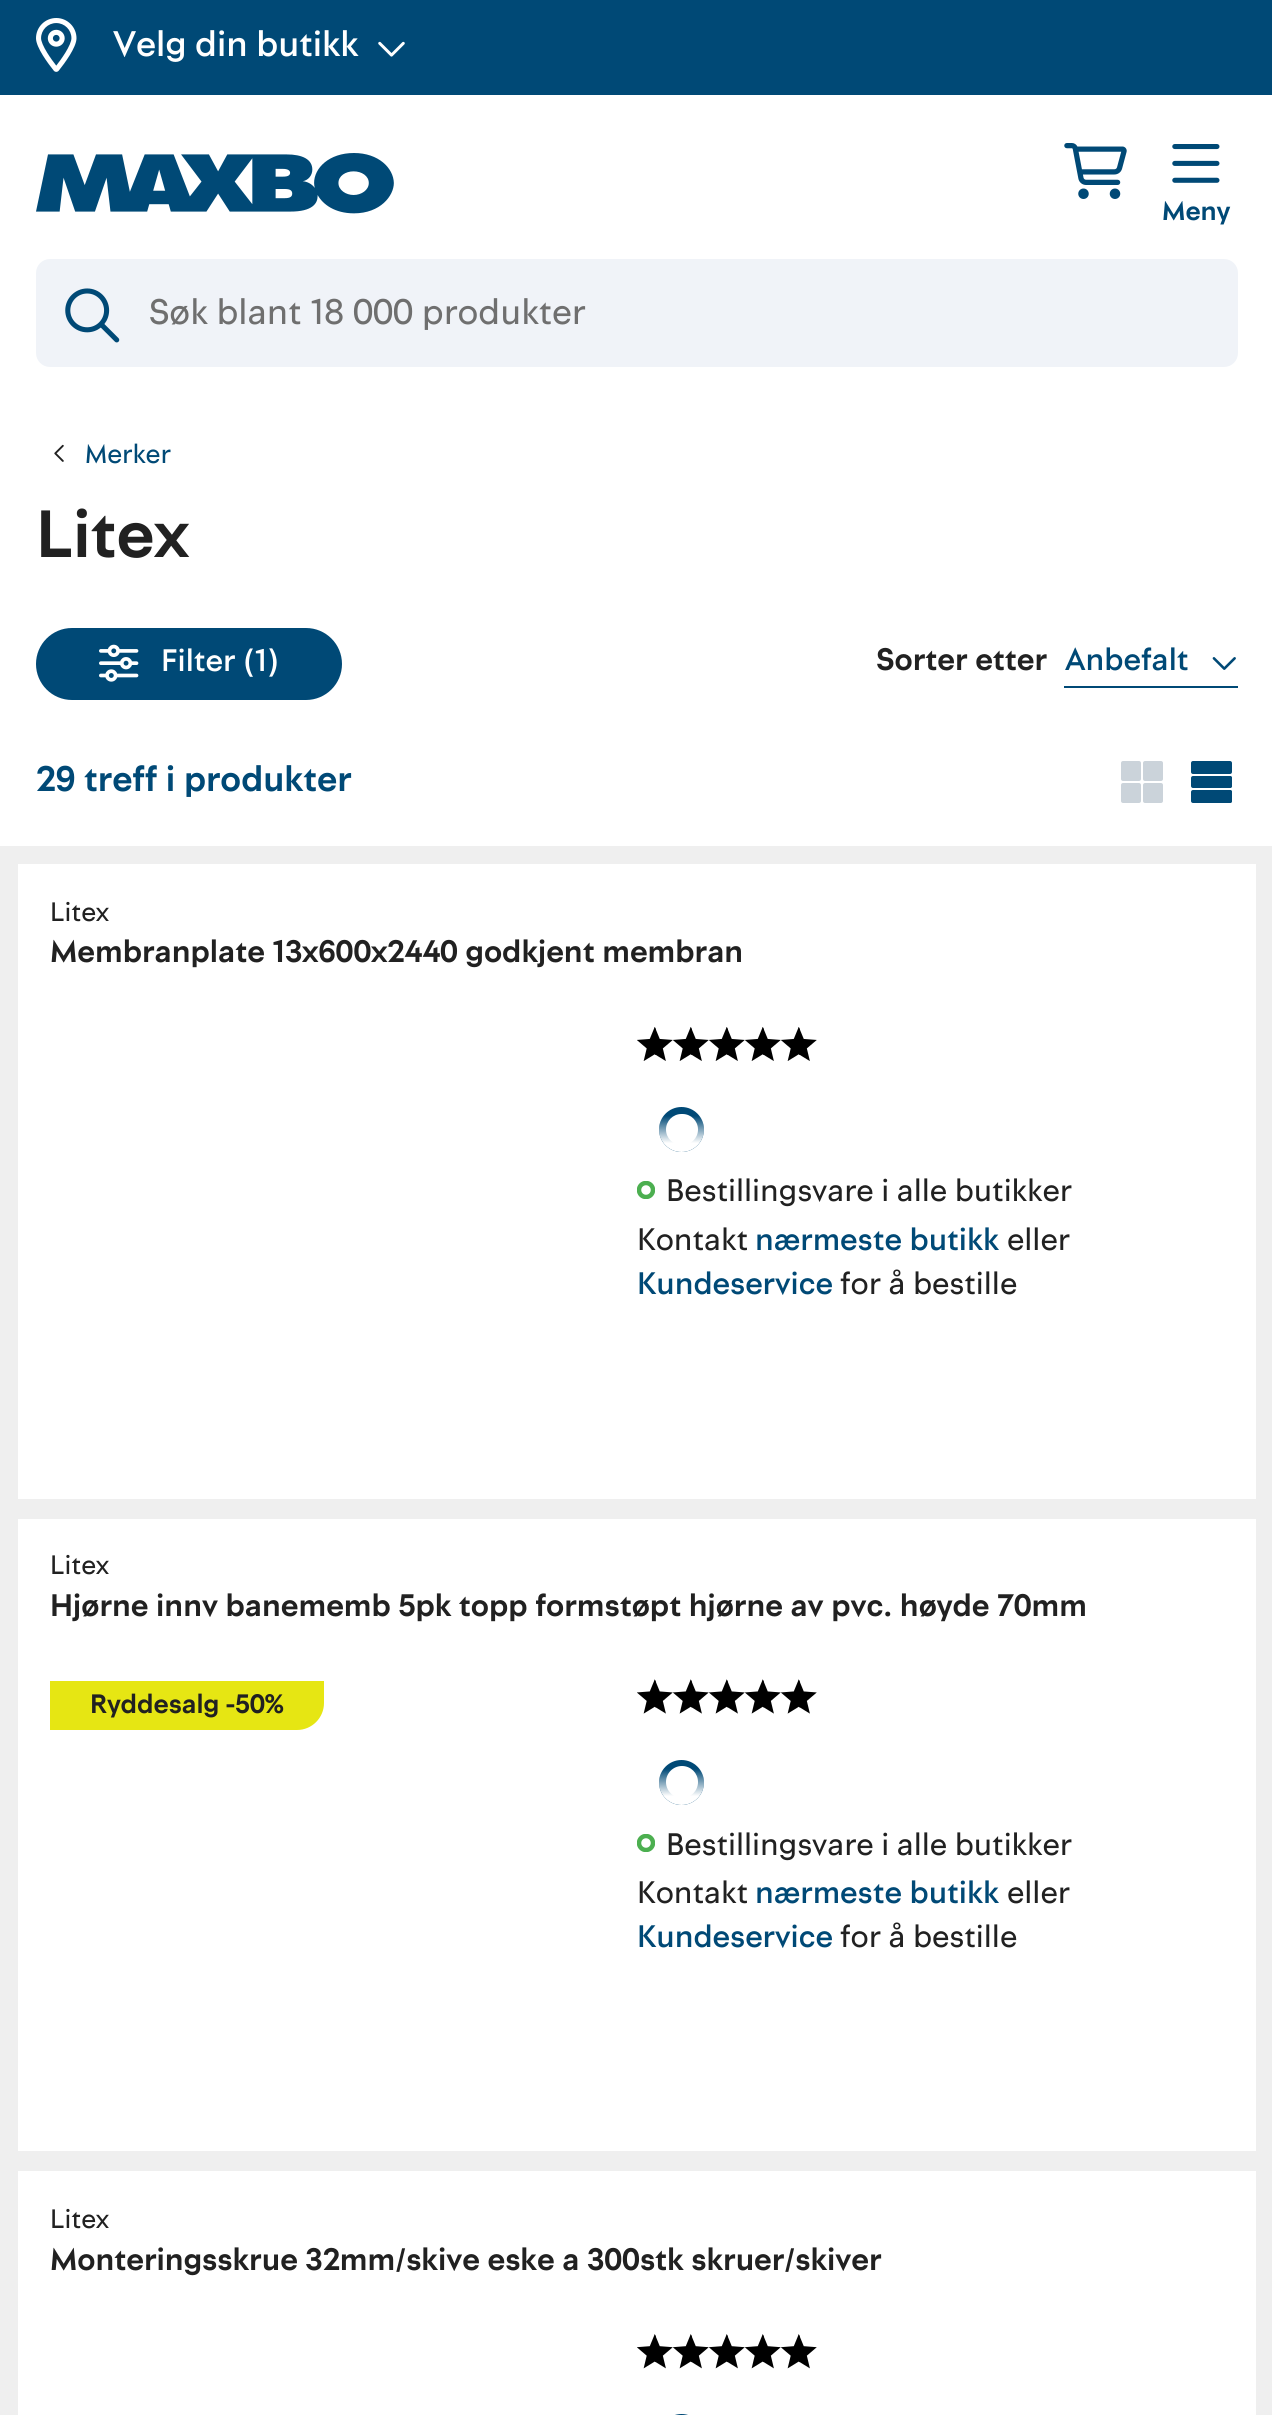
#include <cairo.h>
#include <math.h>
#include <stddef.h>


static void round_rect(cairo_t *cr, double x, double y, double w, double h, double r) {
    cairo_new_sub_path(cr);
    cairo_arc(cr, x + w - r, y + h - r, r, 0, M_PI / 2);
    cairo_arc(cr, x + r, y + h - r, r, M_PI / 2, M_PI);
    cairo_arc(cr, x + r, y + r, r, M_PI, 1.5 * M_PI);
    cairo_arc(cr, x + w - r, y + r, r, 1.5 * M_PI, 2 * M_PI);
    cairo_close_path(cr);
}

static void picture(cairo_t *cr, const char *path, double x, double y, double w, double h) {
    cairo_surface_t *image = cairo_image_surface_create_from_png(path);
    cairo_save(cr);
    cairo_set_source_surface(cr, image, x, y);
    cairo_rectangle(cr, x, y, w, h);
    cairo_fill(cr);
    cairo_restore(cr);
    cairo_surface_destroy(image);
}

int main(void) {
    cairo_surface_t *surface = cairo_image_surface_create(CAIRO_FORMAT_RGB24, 1272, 2415);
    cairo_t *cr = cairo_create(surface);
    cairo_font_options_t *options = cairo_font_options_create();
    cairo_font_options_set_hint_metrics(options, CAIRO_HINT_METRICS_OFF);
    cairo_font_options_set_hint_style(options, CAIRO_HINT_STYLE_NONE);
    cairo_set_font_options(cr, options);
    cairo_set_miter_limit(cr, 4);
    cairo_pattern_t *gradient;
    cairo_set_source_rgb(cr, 1, 1, 1);
    cairo_paint(cr);
    cairo_set_source_rgb(cr, 0, 0.286, 0.463);
    cairo_rectangle(cr, 0, 0, 1272, 95);
    cairo_fill(cr);
    picture(cr, "img1.png", 36, 18, 41, 54);
    cairo_select_font_face(cr, "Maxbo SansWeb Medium", CAIRO_FONT_SLANT_NORMAL, CAIRO_FONT_WEIGHT_NORMAL);
    cairo_set_font_size(cr, 36);
    cairo_set_source_rgb(cr, 1, 1, 1);
    cairo_move_to(cr, 113, 56);
    cairo_show_text(cr, "Velg din butikk");
    picture(cr, "img2.png", 378, 41, 27, 16);
    picture(cr, "img3.png", 36, 153, 358, 61);
    picture(cr, "img4.png", 1064, 143, 63, 56);
    picture(cr, "img5.png", 1172, 144, 48, 39);
    cairo_select_font_face(cr, "Maxbo SansWeb", CAIRO_FONT_SLANT_NORMAL, CAIRO_FONT_WEIGHT_BOLD);
    cairo_set_font_size(cr, 27);
    cairo_set_source_rgb(cr, 0, 0.286, 0.463);
    cairo_move_to(cr, 1162, 220);
    cairo_show_text(cr, "Meny");
    cairo_set_source_rgb(cr, 0.941, 0.953, 0.969);
    round_rect(cr, 36, 259, 1202, 108, 14);
    cairo_fill(cr);
    picture(cr, "img6.png", 65, 288, 55, 55);
    cairo_select_font_face(cr, "Maxbo SansWeb", CAIRO_FONT_SLANT_NORMAL, CAIRO_FONT_WEIGHT_NORMAL);
    cairo_set_font_size(cr, 36);
    cairo_set_source_rgb(cr, 0.435, 0.435, 0.435);
    cairo_move_to(cr, 149, 324);
    cairo_show_text(cr, "Søk blant 18 000 produkter");
    picture(cr, "img7.png", 54, 444, 10, 18);
    cairo_set_font_size(cr, 27);
    cairo_set_source_rgb(cr, 0, 0.286, 0.463);
    cairo_move_to(cr, 85, 463);
    cairo_show_text(cr, "Merker");
    cairo_select_font_face(cr, "Maxbo SansWeb", CAIRO_FONT_SLANT_NORMAL, CAIRO_FONT_WEIGHT_BOLD);
    cairo_set_font_size(cr, 67.5);
    cairo_set_source_rgb(cr, 0.129, 0.129, 0.129);
    cairo_move_to(cr, 36, 557);
    cairo_show_text(cr, "Litex");
    cairo_set_source_rgb(cr, 0, 0.286, 0.463);
    round_rect(cr, 36, 628, 306, 72, 36);
    cairo_fill(cr);
    picture(cr, "img8.png", 99, 644, 40, 38);
    cairo_select_font_face(cr, "Maxbo SansWeb Medium", CAIRO_FONT_SLANT_NORMAL, CAIRO_FONT_WEIGHT_NORMAL);
    cairo_set_font_size(cr, 31.5);
    cairo_set_source_rgb(cr, 1, 1, 1);
    cairo_move_to(cr, 161, 671);
    cairo_show_text(cr, "Filter (1)");
    cairo_select_font_face(cr, "Maxbo SansWeb", CAIRO_FONT_SLANT_NORMAL, CAIRO_FONT_WEIGHT_BOLD);
    cairo_set_source_rgb(cr, 0.129, 0.129, 0.129);
    cairo_move_to(cr, 876, 670);
    cairo_show_text(cr, "Sorter etter");
    cairo_set_source_rgb(cr, 0, 0.286, 0.463);
    cairo_rectangle(cr, 1064, 686, 174, 2);
    cairo_fill(cr);
    cairo_select_font_face(cr, "Maxbo SansWeb Medium", CAIRO_FONT_SLANT_NORMAL, CAIRO_FONT_WEIGHT_NORMAL);
    cairo_move_to(cr, 1065, 670);
    cairo_show_text(cr, "Anbefalt");
    picture(cr, "img9.png", 1212, 657, 24, 13);
    cairo_select_font_face(cr, "Maxbo SansWeb", CAIRO_FONT_SLANT_NORMAL, CAIRO_FONT_WEIGHT_BOLD);
    cairo_set_font_size(cr, 36);
    cairo_move_to(cr, 36, 791);
    cairo_show_text(cr, "29 treff i produkter");
    cairo_set_source_rgb(cr, 0.796, 0.827, 0.855);
    round_rect(cr, 1121, 761, 20, 20, 2);
    cairo_fill(cr);
    round_rect(cr, 1143, 761, 20, 20, 2);
    cairo_fill(cr);
    round_rect(cr, 1121, 783, 20, 20, 2);
    cairo_fill(cr);
    round_rect(cr, 1143, 783, 20, 20, 2);
    cairo_fill(cr);
    cairo_set_source_rgb(cr, 0, 0.286, 0.463);
    round_rect(cr, 1191, 761, 41, 13, 2);
    cairo_fill(cr);
    round_rect(cr, 1191, 776, 41, 12, 2);
    cairo_fill(cr);
    round_rect(cr, 1191, 790, 41, 13, 2);
    cairo_fill(cr);
    round_rect(cr, 1205, 776, 27, 12, 2);
    cairo_fill(cr);
    round_rect(cr, 1205, 790, 27, 13, 2);
    cairo_fill(cr);
    cairo_set_source_rgb(cr, 0.937, 0.937, 0.937);
    cairo_rectangle(cr, 0, 846, 1272, 1569);
    cairo_fill(cr);
    cairo_set_source_rgb(cr, 1, 1, 1);
    cairo_rectangle(cr, 18, 864, 1238, 635);
    cairo_fill(cr);
    cairo_select_font_face(cr, "Maxbo SansWeb", CAIRO_FONT_SLANT_NORMAL, CAIRO_FONT_WEIGHT_NORMAL);
    cairo_set_font_size(cr, 27);
    cairo_set_source_rgb(cr, 0.129, 0.129, 0.129);
    cairo_move_to(cr, 50, 921);
    cairo_show_text(cr, "Litex");
    cairo_select_font_face(cr, "Maxbo SansWeb", CAIRO_FONT_SLANT_NORMAL, CAIRO_FONT_WEIGHT_BOLD);
    cairo_set_font_size(cr, 31.5);
    cairo_move_to(cr, 50, 962);
    cairo_show_text(cr, "Membranplate 13x600x2440 godkjent membran");
    picture(cr, "img10.png", 637, 1027, 36, 34);
    picture(cr, "img10.png", 673, 1027, 36, 34);
    picture(cr, "img10.png", 709, 1027, 36, 34);
    picture(cr, "img10.png", 745, 1027, 36, 34);
    picture(cr, "img10.png", 781, 1027, 36, 34);
    cairo_set_source_rgb(cr, 0, 0.286, 0.463);
    cairo_arc(cr, 681.5, 1129.5, 22.5, 0, 2 * M_PI);
    cairo_fill(cr);
    gradient = cairo_pattern_create_linear(682, 1152, 682, 1107);
    cairo_pattern_add_color_stop_rgba(gradient, 0.2, 1, 1, 1, 1);
    cairo_pattern_add_color_stop_rgba(gradient, 0.8, 1, 1, 1, 0);
    cairo_set_source(cr, gradient);
    cairo_pattern_destroy(gradient);
    cairo_arc(cr, 681.5, 1129.5, 22.5, 0, 2 * M_PI);
    cairo_fill(cr);
    cairo_set_source_rgb(cr, 1, 1, 1);
    round_rect(cr, 666, 1114, 32, 31, 15.5);
    cairo_fill(cr);
    cairo_save(cr);
    cairo_rectangle(cr, 637, 1181, 18, 18);
    cairo_clip(cr);
    cairo_arc(cr, 646, 1190, 7, 0, 2 * M_PI);
    cairo_set_source_rgb(cr, 0.298, 0.686, 0.314);
    cairo_set_line_width(cr, 4.5);
    cairo_stroke(cr);
    cairo_restore(cr);
    cairo_select_font_face(cr, "Maxbo SansWeb", CAIRO_FONT_SLANT_NORMAL, CAIRO_FONT_WEIGHT_NORMAL);
    cairo_set_source_rgb(cr, 0.129, 0.129, 0.129);
    cairo_move_to(cr, 666, 1201);
    cairo_show_text(cr, "Bestillingsvare i alle butikker");
    cairo_move_to(cr, 637, 1250);
    cairo_show_text(cr, "Kontakt");
    cairo_select_font_face(cr, "Maxbo SansWeb Medium", CAIRO_FONT_SLANT_NORMAL, CAIRO_FONT_WEIGHT_NORMAL);
    cairo_set_source_rgb(cr, 0, 0.286, 0.463);
    cairo_move_to(cr, 755, 1250);
    cairo_show_text(cr, "nærmeste butikk");
    cairo_select_font_face(cr, "Maxbo SansWeb", CAIRO_FONT_SLANT_NORMAL, CAIRO_FONT_WEIGHT_NORMAL);
    cairo_set_source_rgb(cr, 0.129, 0.129, 0.129);
    cairo_move_to(cr, 1007, 1250);
    cairo_show_text(cr, "eller");
    cairo_select_font_face(cr, "Maxbo SansWeb Medium", CAIRO_FONT_SLANT_NORMAL, CAIRO_FONT_WEIGHT_NORMAL);
    cairo_set_source_rgb(cr, 0, 0.286, 0.463);
    cairo_move_to(cr, 637, 1294);
    cairo_show_text(cr, "Kundeservice");
    cairo_select_font_face(cr, "Maxbo SansWeb", CAIRO_FONT_SLANT_NORMAL, CAIRO_FONT_WEIGHT_NORMAL);
    cairo_set_source_rgb(cr, 0.129, 0.129, 0.129);
    cairo_move_to(cr, 840, 1294);
    cairo_show_text(cr, "for å bestille");
    cairo_set_source_rgb(cr, 1, 1, 1);
    cairo_rectangle(cr, 18, 1519, 1238, 632);
    cairo_fill(cr);
    cairo_set_font_size(cr, 27);
    cairo_set_source_rgb(cr, 0.129, 0.129, 0.129);
    cairo_move_to(cr, 50, 1574);
    cairo_show_text(cr, "Litex");
    cairo_select_font_face(cr, "Maxbo SansWeb", CAIRO_FONT_SLANT_NORMAL, CAIRO_FONT_WEIGHT_BOLD);
    cairo_set_font_size(cr, 31.5);
    cairo_move_to(cr, 50, 1616);
    cairo_show_text(cr, "Hjørne innv banememb 5pk topp formstøpt hjørne av pvc. høyde 70mm");
    cairo_set_source_rgb(cr, 0.902, 0.902, 0.078);
    cairo_new_path(cr);
    cairo_move_to(cr, 52.5, 1683.5);
    cairo_line_to(cr, 321.5, 1683.5);
    cairo_line_to(cr, 321.5, 1703);
    cairo_curve_to(cr, 321.5, 1716.5, 310.5, 1727.5, 297, 1727.5);
    cairo_line_to(cr, 52.5, 1727.5);
    cairo_close_path(cr);
    cairo_fill_preserve(cr);
    cairo_set_line_width(cr, 5);
    cairo_stroke(cr);
    cairo_set_font_size(cr, 27);
    cairo_set_source_rgb(cr, 0.129, 0.129, 0.129);
    cairo_move_to(cr, 90, 1713);
    cairo_show_text(cr, "Ryddesalg -50%");
    picture(cr, "img11.png", 637, 1679, 36, 35);
    picture(cr, "img11.png", 673, 1679, 36, 35);
    picture(cr, "img11.png", 709, 1679, 36, 35);
    picture(cr, "img11.png", 745, 1679, 36, 35);
    picture(cr, "img11.png", 781, 1679, 36, 35);
    cairo_set_source_rgb(cr, 0, 0.286, 0.463);
    cairo_arc(cr, 681.5, 1782.5, 22.5, 0, 2 * M_PI);
    cairo_fill(cr);
    gradient = cairo_pattern_create_linear(682, 1805, 682, 1760);
    cairo_pattern_add_color_stop_rgba(gradient, 0.2, 1, 1, 1, 1);
    cairo_pattern_add_color_stop_rgba(gradient, 0.8, 1, 1, 1, 0);
    cairo_set_source(cr, gradient);
    cairo_pattern_destroy(gradient);
    cairo_arc(cr, 681.5, 1782.5, 22.5, 0, 2 * M_PI);
    cairo_fill(cr);
    cairo_set_source_rgb(cr, 1, 1, 1);
    cairo_arc(cr, 682, 1782, 16, 0, 2 * M_PI);
    cairo_fill(cr);
    cairo_save(cr);
    cairo_rectangle(cr, 637, 1834, 18, 18);
    cairo_clip(cr);
    cairo_arc(cr, 646, 1843, 7, 0, 2 * M_PI);
    cairo_set_source_rgb(cr, 0.298, 0.686, 0.314);
    cairo_set_line_width(cr, 4.5);
    cairo_stroke(cr);
    cairo_restore(cr);
    cairo_select_font_face(cr, "Maxbo SansWeb", CAIRO_FONT_SLANT_NORMAL, CAIRO_FONT_WEIGHT_NORMAL);
    cairo_set_font_size(cr, 31.5);
    cairo_set_source_rgb(cr, 0.129, 0.129, 0.129);
    cairo_move_to(cr, 666, 1855);
    cairo_show_text(cr, "Bestillingsvare i alle butikker");
    cairo_move_to(cr, 637, 1903);
    cairo_show_text(cr, "Kontakt");
    cairo_select_font_face(cr, "Maxbo SansWeb Medium", CAIRO_FONT_SLANT_NORMAL, CAIRO_FONT_WEIGHT_NORMAL);
    cairo_set_source_rgb(cr, 0, 0.286, 0.463);
    cairo_move_to(cr, 755, 1903);
    cairo_show_text(cr, "nærmeste butikk");
    cairo_select_font_face(cr, "Maxbo SansWeb", CAIRO_FONT_SLANT_NORMAL, CAIRO_FONT_WEIGHT_NORMAL);
    cairo_set_source_rgb(cr, 0.129, 0.129, 0.129);
    cairo_move_to(cr, 1007, 1903);
    cairo_show_text(cr, "eller");
    cairo_select_font_face(cr, "Maxbo SansWeb Medium", CAIRO_FONT_SLANT_NORMAL, CAIRO_FONT_WEIGHT_NORMAL);
    cairo_set_source_rgb(cr, 0, 0.286, 0.463);
    cairo_move_to(cr, 637, 1947);
    cairo_show_text(cr, "Kundeservice");
    cairo_select_font_face(cr, "Maxbo SansWeb", CAIRO_FONT_SLANT_NORMAL, CAIRO_FONT_WEIGHT_NORMAL);
    cairo_set_source_rgb(cr, 0.129, 0.129, 0.129);
    cairo_move_to(cr, 840, 1947);
    cairo_show_text(cr, "for å bestille");
    cairo_set_source_rgb(cr, 1, 1, 1);
    cairo_rectangle(cr, 18, 2171, 1238, 244);
    cairo_fill(cr);
    cairo_set_font_size(cr, 27);
    cairo_set_source_rgb(cr, 0.129, 0.129, 0.129);
    cairo_move_to(cr, 50, 2228);
    cairo_show_text(cr, "Litex");
    cairo_select_font_face(cr, "Maxbo SansWeb", CAIRO_FONT_SLANT_NORMAL, CAIRO_FONT_WEIGHT_BOLD);
    cairo_set_font_size(cr, 31.5);
    cairo_move_to(cr, 50, 2270);
    cairo_show_text(cr, "Monteringsskrue 32mm/skive eske a 300stk skruer/skiver");
    picture(cr, "img12.png", 637, 2334, 36, 35);
    picture(cr, "img12.png", 673, 2334, 36, 35);
    picture(cr, "img12.png", 709, 2334, 36, 35);
    picture(cr, "img12.png", 745, 2334, 36, 35);
    picture(cr, "img12.png", 781, 2334, 36, 35);
    cairo_set_source_rgb(cr, 0, 0.286, 0.463);
    round_rect(cr, 659, 2414, 45, 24, 22.5);
    cairo_fill(cr);
    cairo_surface_write_to_png(surface, "page.png");
    cairo_font_options_destroy(options);
    cairo_destroy(cr);
    cairo_surface_destroy(surface);
    return 0;
}
